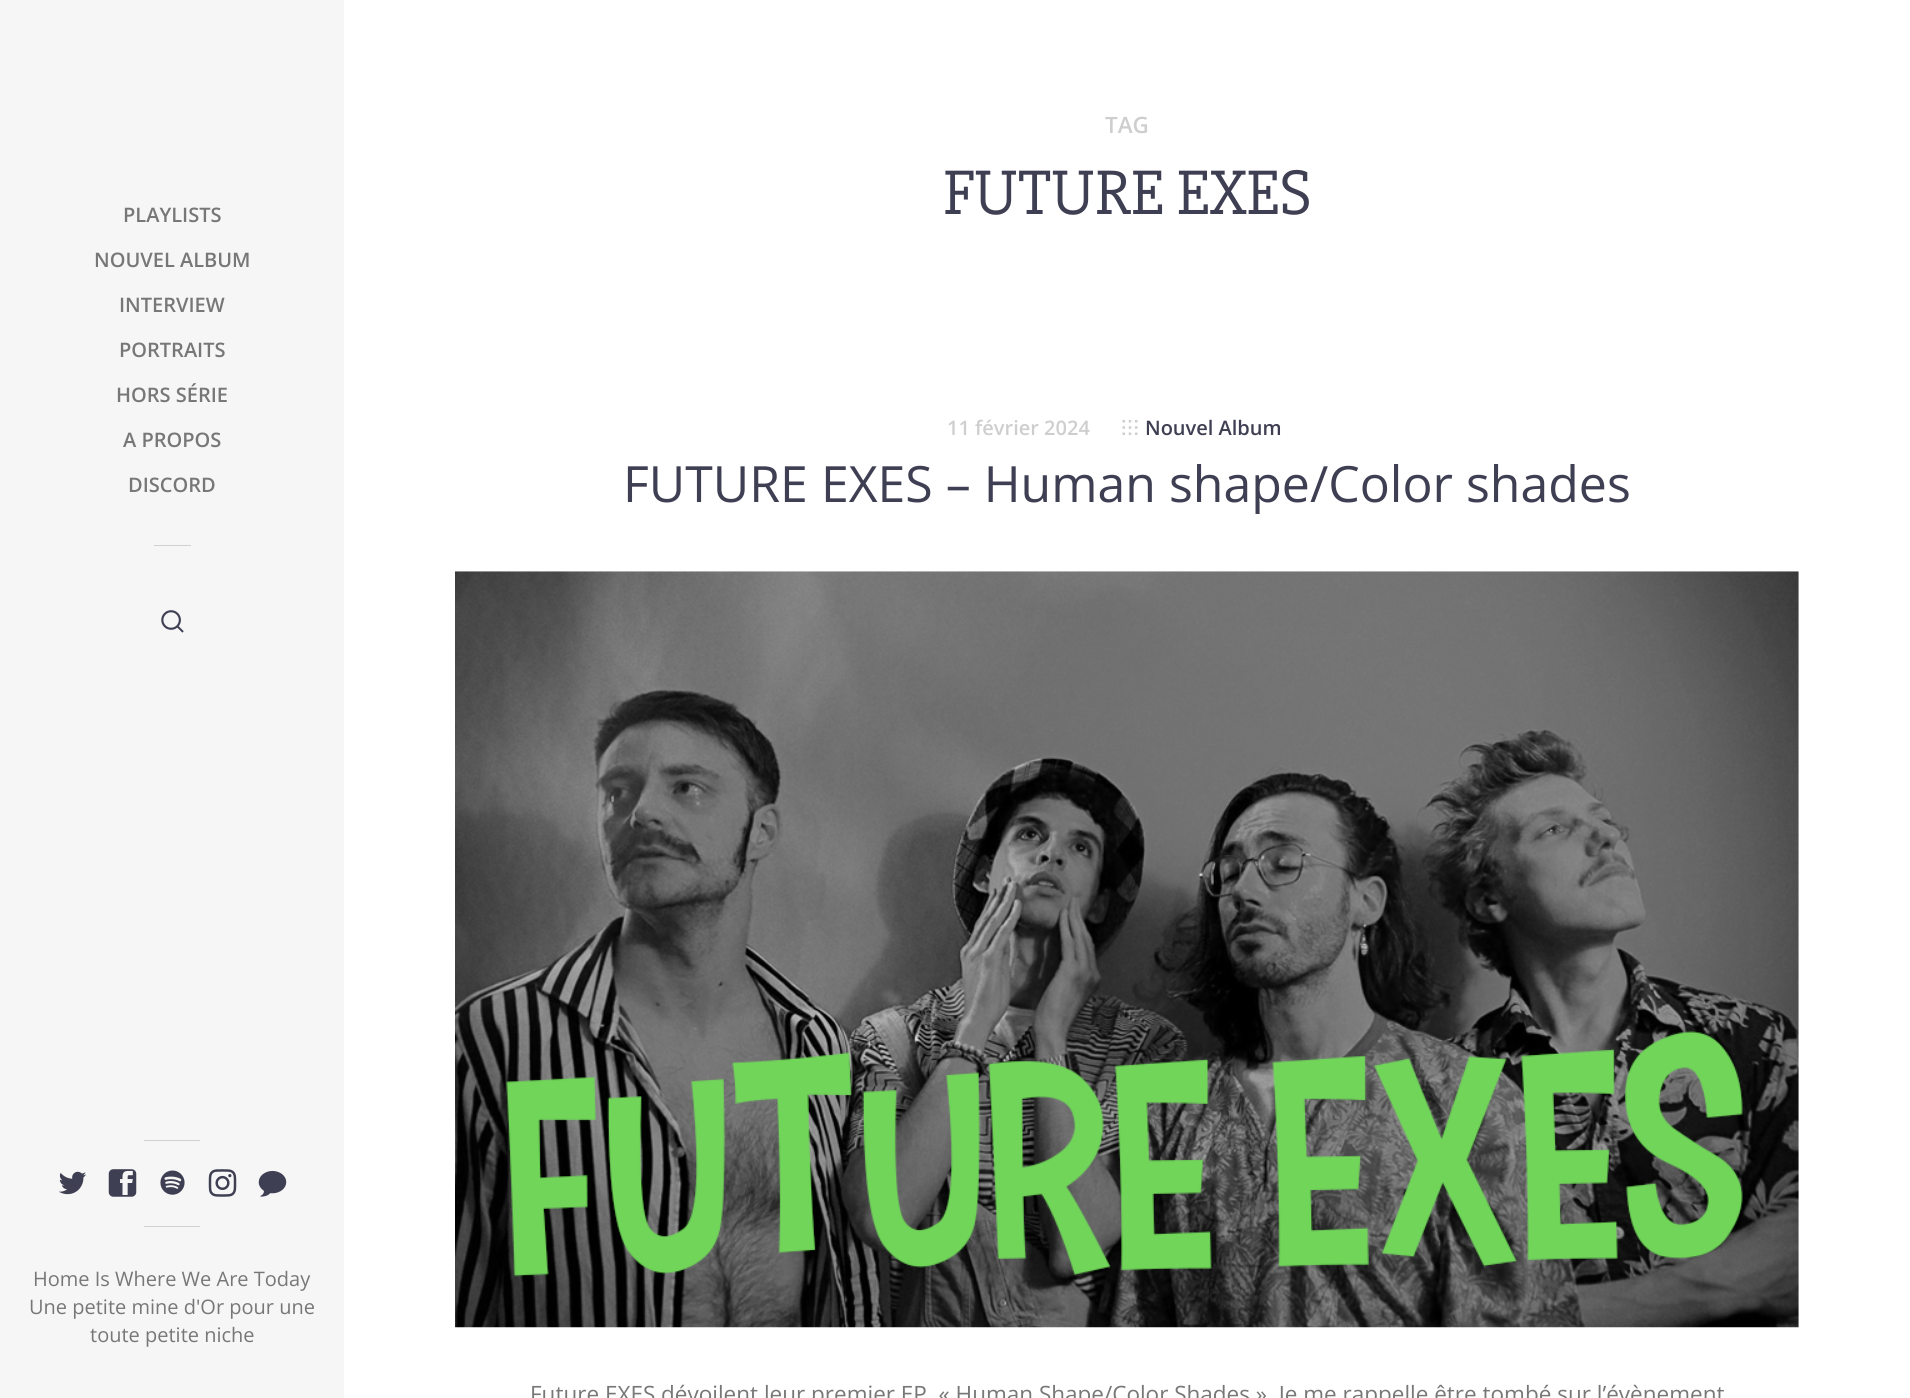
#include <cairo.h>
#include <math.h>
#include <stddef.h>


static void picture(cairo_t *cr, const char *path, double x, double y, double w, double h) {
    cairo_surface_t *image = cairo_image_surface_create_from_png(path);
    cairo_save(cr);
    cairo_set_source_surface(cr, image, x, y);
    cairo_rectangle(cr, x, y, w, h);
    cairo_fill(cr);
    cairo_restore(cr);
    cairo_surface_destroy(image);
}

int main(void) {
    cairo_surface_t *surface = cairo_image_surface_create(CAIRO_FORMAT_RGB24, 1910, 1398);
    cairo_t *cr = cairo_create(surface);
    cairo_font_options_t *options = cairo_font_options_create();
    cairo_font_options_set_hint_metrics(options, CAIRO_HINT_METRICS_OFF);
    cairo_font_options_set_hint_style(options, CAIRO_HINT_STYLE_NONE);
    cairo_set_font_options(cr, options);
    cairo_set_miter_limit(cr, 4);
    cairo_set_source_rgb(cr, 1, 1, 1);
    cairo_paint(cr);
    cairo_set_source_rgb(cr, 0.961, 0.961, 0.961);
    cairo_rectangle(cr, 0, 0, 344, 1398);
    cairo_fill(cr);
    cairo_select_font_face(cr, "Open Sans SemiBold", CAIRO_FONT_SLANT_NORMAL, CAIRO_FONT_WEIGHT_NORMAL);
    cairo_set_font_size(cr, 20);
    cairo_set_source_rgb(cr, 0.467, 0.467, 0.467);
    cairo_move_to(cr, 123, 222);
    cairo_show_text(cr, "PLAYLISTS");
    cairo_move_to(cr, 94, 267);
    cairo_show_text(cr, "NOUVEL ALBUM");
    cairo_move_to(cr, 119, 312);
    cairo_show_text(cr, "INTERVIEW");
    cairo_move_to(cr, 119, 357);
    cairo_show_text(cr, "PORTRAITS");
    cairo_move_to(cr, 116, 402);
    cairo_show_text(cr, "HORS SÉRIE");
    cairo_move_to(cr, 123, 447);
    cairo_show_text(cr, "A PROPOS");
    cairo_move_to(cr, 128, 492);
    cairo_show_text(cr, "DISCORD");
    cairo_set_source_rgb(cr, 0.82, 0.82, 0.835);
    cairo_rectangle(cr, 154, 545, 37, 1);
    cairo_fill(cr);
    picture(cr, "img1.png", 161, 610, 23, 23);
    cairo_rectangle(cr, 144, 1140, 56, 1);
    cairo_fill(cr);
    picture(cr, "img2.png", 59, 1171, 28, 24);
    picture(cr, "img3.png", 108, 1169, 29, 28);
    picture(cr, "img4.png", 160, 1170, 25, 25);
    picture(cr, "img5.png", 208, 1169, 29, 28);
    picture(cr, "img6.png", 258, 1170, 29, 27);
    cairo_rectangle(cr, 144, 1226, 56, 1);
    cairo_fill(cr);
    cairo_select_font_face(cr, "Open Sans", CAIRO_FONT_SLANT_NORMAL, CAIRO_FONT_WEIGHT_NORMAL);
    cairo_set_source_rgb(cr, 0.467, 0.467, 0.467);
    cairo_move_to(cr, 33, 1286);
    cairo_show_text(cr, "Home Is Where We Are Today");
    cairo_move_to(cr, 29, 1314);
    cairo_show_text(cr, "Une petite mine d'Or pour une");
    cairo_move_to(cr, 90, 1342);
    cairo_show_text(cr, "toute petite niche");
    cairo_select_font_face(cr, "Open Sans SemiBold", CAIRO_FONT_SLANT_NORMAL, CAIRO_FONT_WEIGHT_NORMAL);
    cairo_set_font_size(cr, 22.5);
    cairo_set_source_rgb(cr, 0.808, 0.808, 0.808);
    cairo_move_to(cr, 1105, 133);
    cairo_show_text(cr, "TAG");
    cairo_select_font_face(cr, "Slabo 27px", CAIRO_FONT_SLANT_NORMAL, CAIRO_FONT_WEIGHT_NORMAL);
    cairo_set_font_size(cr, 65);
    cairo_set_source_rgb(cr, 0.247, 0.247, 0.325);
    cairo_move_to(cr, 943, 214);
    cairo_show_text(cr, "FUTURE EXES");
    cairo_select_font_face(cr, "Open Sans SemiBold", CAIRO_FONT_SLANT_NORMAL, CAIRO_FONT_WEIGHT_NORMAL);
    cairo_set_font_size(cr, 20);
    cairo_set_source_rgb(cr, 0.808, 0.808, 0.808);
    cairo_move_to(cr, 947, 435);
    cairo_show_text(cr, "11 février 2024");
    picture(cr, "img7.png", 1122, 420, 16, 15);
    cairo_set_source_rgb(cr, 0.247, 0.247, 0.325);
    cairo_move_to(cr, 1145, 435);
    cairo_show_text(cr, "Nouvel Album");
    cairo_select_font_face(cr, "Open Sans", CAIRO_FONT_SLANT_NORMAL, CAIRO_FONT_WEIGHT_NORMAL);
    cairo_set_font_size(cr, 50);
    cairo_move_to(cr, 623, 502);
    cairo_show_text(cr, "FUTURE EXES – Human shape/Color shades");
    picture(cr, "img8.png", 455, 571, 1344, 757);
    cairo_set_font_size(cr, 22.5);
    cairo_set_source_rgb(cr, 0.467, 0.467, 0.467);
    cairo_move_to(cr, 530, 1402);
    cairo_show_text(cr, "Future EXES dévoilent leur premier EP, « Human Shape/Color Shades ». Je me rappelle être tombé sur l’évènement");
    cairo_surface_write_to_png(surface, "page.png");
    cairo_font_options_destroy(options);
    cairo_destroy(cr);
    cairo_surface_destroy(surface);
    return 0;
}
